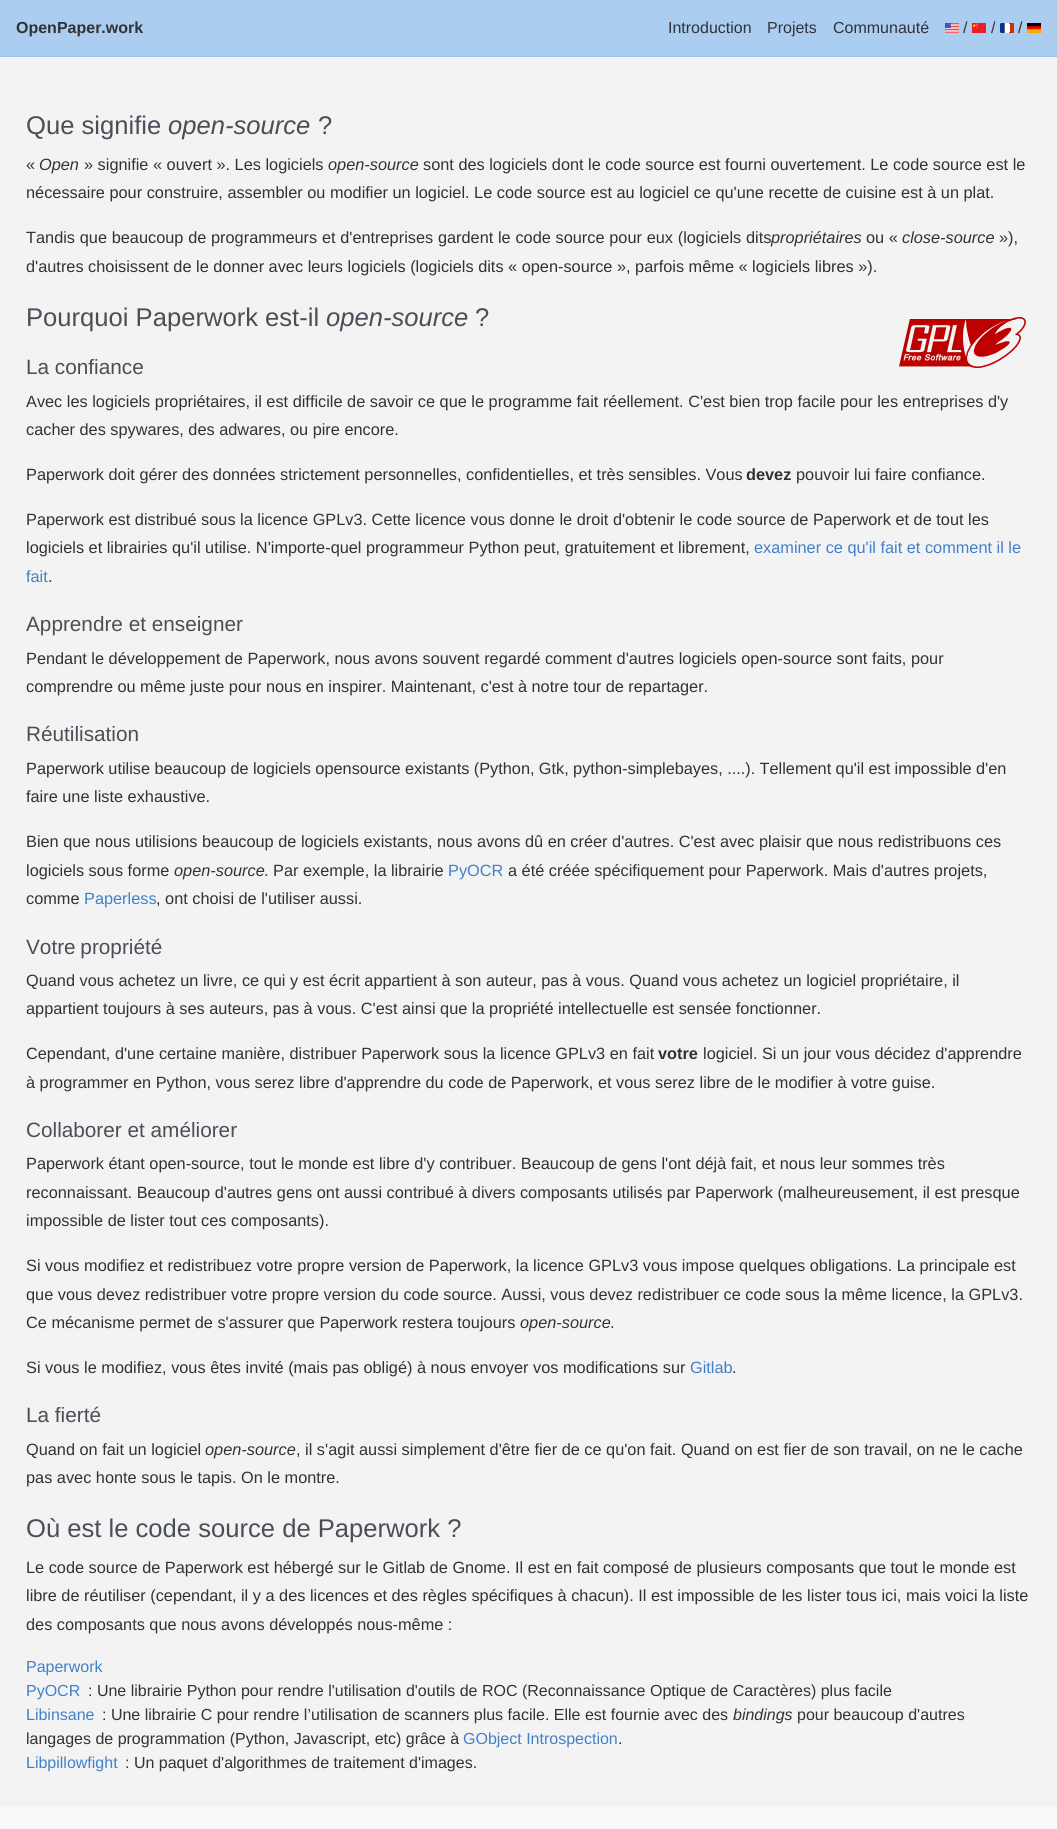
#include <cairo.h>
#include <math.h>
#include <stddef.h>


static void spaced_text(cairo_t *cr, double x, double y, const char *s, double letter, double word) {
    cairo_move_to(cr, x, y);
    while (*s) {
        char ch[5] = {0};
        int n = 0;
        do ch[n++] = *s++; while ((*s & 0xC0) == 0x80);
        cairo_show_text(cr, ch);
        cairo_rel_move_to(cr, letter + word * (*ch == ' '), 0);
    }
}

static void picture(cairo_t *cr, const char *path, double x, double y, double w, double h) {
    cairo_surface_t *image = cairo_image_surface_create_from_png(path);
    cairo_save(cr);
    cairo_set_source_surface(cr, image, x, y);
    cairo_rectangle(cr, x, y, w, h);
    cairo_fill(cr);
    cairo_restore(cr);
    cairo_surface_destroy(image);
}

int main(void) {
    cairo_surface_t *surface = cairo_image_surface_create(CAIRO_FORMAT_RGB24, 1057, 1829);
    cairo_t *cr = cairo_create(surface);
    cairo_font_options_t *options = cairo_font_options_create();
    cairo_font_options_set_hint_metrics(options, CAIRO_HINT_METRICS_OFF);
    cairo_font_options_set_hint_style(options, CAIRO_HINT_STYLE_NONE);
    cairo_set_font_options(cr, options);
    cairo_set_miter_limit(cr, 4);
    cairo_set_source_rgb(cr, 0.953, 0.953, 0.953);
    cairo_paint(cr);
    cairo_set_source_rgb(cr, 0.671, 0.804, 0.937);
    cairo_rectangle(cr, 0, 0, 1057, 56);
    cairo_fill(cr);
    cairo_set_source_rgb(cr, 0.616, 0.753, 0.922);
    cairo_rectangle(cr, 0, 56, 1057, 1);
    cairo_fill(cr);
    cairo_select_font_face(cr, "Liberation Sans", CAIRO_FONT_SLANT_NORMAL, CAIRO_FONT_WEIGHT_BOLD);
    cairo_set_font_size(cr, 16);
    cairo_set_source_rgb(cr, 0.188, 0.196, 0.22);
    cairo_move_to(cr, 16, 33);
    cairo_show_text(cr, "OpenPaper.work");
    cairo_select_font_face(cr, "Liberation Sans", CAIRO_FONT_SLANT_NORMAL, CAIRO_FONT_WEIGHT_NORMAL);
    cairo_move_to(cr, 668, 33);
    cairo_show_text(cr, "Introduction");
    cairo_move_to(cr, 767, 33);
    cairo_show_text(cr, "Projets");
    cairo_move_to(cr, 833, 33);
    cairo_show_text(cr, "Communauté");
    picture(cr, "img1.png", 945, 23, 14, 10);
    cairo_move_to(cr, 963, 33);
    cairo_show_text(cr, "/");
    picture(cr, "img2.png", 972, 23, 14, 10);
    cairo_move_to(cr, 991, 33);
    cairo_show_text(cr, "/");
    picture(cr, "img3.png", 1000, 23, 14, 10);
    cairo_move_to(cr, 1018, 33);
    cairo_show_text(cr, "/");
    picture(cr, "img4.png", 1027, 23, 14, 10);
    cairo_set_font_size(cr, 25.6);
    cairo_set_source_rgb(cr, 0.29, 0.306, 0.337);
    cairo_move_to(cr, 26, 134);
    cairo_show_text(cr, "Que signifie");
    cairo_select_font_face(cr, "Liberation Sans", CAIRO_FONT_SLANT_ITALIC, CAIRO_FONT_WEIGHT_NORMAL);
    cairo_move_to(cr, 168, 134);
    cairo_show_text(cr, "open-source");
    cairo_select_font_face(cr, "Liberation Sans", CAIRO_FONT_SLANT_NORMAL, CAIRO_FONT_WEIGHT_NORMAL);
    cairo_move_to(cr, 318, 134);
    cairo_show_text(cr, "?");
    cairo_set_font_size(cr, 16.32);
    cairo_set_source_rgb(cr, 0.188, 0.196, 0.22);
    cairo_move_to(cr, 26, 170);
    cairo_show_text(cr, "«");
    cairo_select_font_face(cr, "Liberation Sans", CAIRO_FONT_SLANT_ITALIC, CAIRO_FONT_WEIGHT_NORMAL);
    cairo_move_to(cr, 39, 170);
    cairo_show_text(cr, "Open");
    cairo_select_font_face(cr, "Liberation Sans", CAIRO_FONT_SLANT_NORMAL, CAIRO_FONT_WEIGHT_NORMAL);
    cairo_move_to(cr, 84, 170);
    cairo_show_text(cr, "» signifie « ouvert ». Les logiciels");
    cairo_select_font_face(cr, "Liberation Sans", CAIRO_FONT_SLANT_ITALIC, CAIRO_FONT_WEIGHT_NORMAL);
    cairo_move_to(cr, 328, 170);
    cairo_show_text(cr, "open-source");
    cairo_select_font_face(cr, "Liberation Sans", CAIRO_FONT_SLANT_NORMAL, CAIRO_FONT_WEIGHT_NORMAL);
    cairo_move_to(cr, 423, 170);
    cairo_show_text(cr, "sont des logiciels dont le code source est fourni ouvertement. Le code source est le");
    cairo_move_to(cr, 26, 198);
    cairo_show_text(cr, "nécessaire pour construire, assembler ou modifier un logiciel. Le code source est au logiciel ce qu'une recette de cuisine est à un plat.");
    spaced_text(cr, 26, 243, "Tandis que beaucoup de programmeurs et d'entreprises gardent le code source pour eux (logiciels dits", 0, 0.2);
    cairo_select_font_face(cr, "Liberation Sans", CAIRO_FONT_SLANT_ITALIC, CAIRO_FONT_WEIGHT_NORMAL);
    cairo_move_to(cr, 771, 243);
    cairo_show_text(cr, "propriétaires");
    cairo_select_font_face(cr, "Liberation Sans", CAIRO_FONT_SLANT_NORMAL, CAIRO_FONT_WEIGHT_NORMAL);
    cairo_move_to(cr, 866, 243);
    cairo_show_text(cr, "ou «");
    cairo_select_font_face(cr, "Liberation Sans", CAIRO_FONT_SLANT_ITALIC, CAIRO_FONT_WEIGHT_NORMAL);
    cairo_move_to(cr, 902, 243);
    cairo_show_text(cr, "close-source");
    cairo_select_font_face(cr, "Liberation Sans", CAIRO_FONT_SLANT_NORMAL, CAIRO_FONT_WEIGHT_NORMAL);
    cairo_move_to(cr, 999, 243);
    cairo_show_text(cr, "»),");
    cairo_move_to(cr, 26, 272);
    cairo_show_text(cr, "d'autres choisissent de le donner avec leurs logiciels (logiciels dits « open-source », parfois même « logiciels libres »).");
    cairo_set_font_size(cr, 25.6);
    cairo_set_source_rgb(cr, 0.29, 0.306, 0.337);
    cairo_move_to(cr, 26, 326);
    cairo_show_text(cr, "Pourquoi Paperwork est-il");
    cairo_select_font_face(cr, "Liberation Sans", CAIRO_FONT_SLANT_ITALIC, CAIRO_FONT_WEIGHT_NORMAL);
    cairo_move_to(cr, 326, 326);
    cairo_show_text(cr, "open-source");
    cairo_select_font_face(cr, "Liberation Sans", CAIRO_FONT_SLANT_NORMAL, CAIRO_FONT_WEIGHT_NORMAL);
    cairo_move_to(cr, 475, 326);
    cairo_show_text(cr, "?");
    picture(cr, "img5.png", 899, 317, 127, 51);
    cairo_set_font_size(cr, 20.75);
    cairo_move_to(cr, 26, 374);
    cairo_show_text(cr, "La confiance");
    cairo_set_font_size(cr, 16.32);
    cairo_set_source_rgb(cr, 0.188, 0.196, 0.22);
    cairo_move_to(cr, 26, 407);
    cairo_show_text(cr, "Avec les logiciels propriétaires, il est difficile de savoir ce que le programme fait réellement. C'est bien trop facile pour les entreprises d'y");
    cairo_move_to(cr, 26, 435);
    cairo_show_text(cr, "cacher des spywares, des adwares, ou pire encore.");
    cairo_move_to(cr, 26, 480);
    cairo_show_text(cr, "Paperwork doit gérer des données strictement personnelles, confidentielles, et très sensibles. Vous");
    cairo_select_font_face(cr, "Liberation Sans", CAIRO_FONT_SLANT_NORMAL, CAIRO_FONT_WEIGHT_BOLD);
    cairo_move_to(cr, 746, 480);
    cairo_show_text(cr, "devez");
    cairo_select_font_face(cr, "Liberation Sans", CAIRO_FONT_SLANT_NORMAL, CAIRO_FONT_WEIGHT_NORMAL);
    cairo_move_to(cr, 796, 480);
    cairo_show_text(cr, "pouvoir lui faire confiance.");
    cairo_move_to(cr, 26, 525);
    cairo_show_text(cr, "Paperwork est distribué sous la licence GPLv3. Cette licence vous donne le droit d'obtenir le code source de Paperwork et de tout les");
    cairo_move_to(cr, 26, 553);
    cairo_show_text(cr, "logiciels et librairies qu'il utilise. N'importe-quel programmeur Python peut, gratuitement et librement,");
    cairo_set_source_rgb(cr, 0.259, 0.502, 0.792);
    cairo_move_to(cr, 754, 553);
    cairo_show_text(cr, "examiner ce qu'il fait et comment il le");
    cairo_move_to(cr, 26, 582);
    cairo_show_text(cr, "fait");
    cairo_set_source_rgb(cr, 0.188, 0.196, 0.22);
    cairo_move_to(cr, 48, 582);
    cairo_show_text(cr, ".");
    cairo_set_font_size(cr, 20.75);
    cairo_set_source_rgb(cr, 0.29, 0.306, 0.337);
    cairo_move_to(cr, 26, 631);
    cairo_show_text(cr, "Apprendre et enseigner");
    cairo_set_font_size(cr, 16.32);
    cairo_set_source_rgb(cr, 0.188, 0.196, 0.22);
    cairo_move_to(cr, 26, 664);
    cairo_show_text(cr, "Pendant le développement de Paperwork, nous avons souvent regardé comment d'autres logiciels open-source sont faits, pour");
    spaced_text(cr, 26, 692, "comprendre ou même juste pour nous en inspirer. Maintenant, c'est à notre tour de repartager.", 0, -0.1);
    cairo_set_font_size(cr, 20.75);
    cairo_set_source_rgb(cr, 0.29, 0.306, 0.337);
    cairo_move_to(cr, 26, 741);
    cairo_show_text(cr, "Réutilisation");
    cairo_set_font_size(cr, 16.32);
    cairo_set_source_rgb(cr, 0.188, 0.196, 0.22);
    spaced_text(cr, 26, 774, "Paperwork utilise beaucoup de logiciels opensource existants (Python, Gtk, python-simplebayes, ....). Tellement qu'il est impossible d'en", 0, -0.2);
    cairo_move_to(cr, 26, 802);
    cairo_show_text(cr, "faire une liste exhaustive.");
    cairo_move_to(cr, 26, 847);
    cairo_show_text(cr, "Bien que nous utilisions beaucoup de logiciels existants, nous avons dû en créer d'autres. C'est avec plaisir que nous redistribuons ces");
    cairo_move_to(cr, 26, 876);
    cairo_show_text(cr, "logiciels sous forme");
    cairo_select_font_face(cr, "Liberation Sans", CAIRO_FONT_SLANT_ITALIC, CAIRO_FONT_WEIGHT_NORMAL);
    cairo_move_to(cr, 174, 876);
    cairo_show_text(cr, "open-source");
    cairo_select_font_face(cr, "Liberation Sans", CAIRO_FONT_SLANT_NORMAL, CAIRO_FONT_WEIGHT_NORMAL);
    cairo_move_to(cr, 264, 876);
    cairo_show_text(cr, ". Par exemple, la librairie");
    cairo_set_source_rgb(cr, 0.259, 0.502, 0.792);
    cairo_move_to(cr, 448, 876);
    cairo_show_text(cr, "PyOCR");
    cairo_set_source_rgb(cr, 0.188, 0.196, 0.22);
    cairo_move_to(cr, 508, 876);
    cairo_show_text(cr, "a été créée spécifiquement pour Paperwork. Mais d'autres projets,");
    cairo_move_to(cr, 26, 904);
    cairo_show_text(cr, "comme");
    cairo_set_source_rgb(cr, 0.259, 0.502, 0.792);
    cairo_move_to(cr, 84, 904);
    cairo_show_text(cr, "Paperless");
    cairo_set_source_rgb(cr, 0.188, 0.196, 0.22);
    cairo_move_to(cr, 156, 904);
    cairo_show_text(cr, ", ont choisi de l'utiliser aussi.");
    cairo_set_font_size(cr, 20.75);
    cairo_set_source_rgb(cr, 0.29, 0.306, 0.337);
    spaced_text(cr, 26, 954, "Votre propriété", 0, -1);
    cairo_set_font_size(cr, 16.32);
    cairo_set_source_rgb(cr, 0.188, 0.196, 0.22);
    cairo_move_to(cr, 26, 986);
    cairo_show_text(cr, "Quand vous achetez un livre, ce qui y est écrit appartient à son auteur, pas à vous. Quand vous achetez un logiciel propriétaire, il");
    cairo_move_to(cr, 26, 1014);
    cairo_show_text(cr, "appartient toujours à ses auteurs, pas à vous. C'est ainsi que la propriété intellectuelle est sensée fonctionner.");
    cairo_move_to(cr, 26, 1059);
    cairo_show_text(cr, "Cependant, d'une certaine manière, distribuer Paperwork sous la licence GPLv3 en fait");
    cairo_select_font_face(cr, "Liberation Sans", CAIRO_FONT_SLANT_NORMAL, CAIRO_FONT_WEIGHT_BOLD);
    cairo_move_to(cr, 658, 1059);
    cairo_show_text(cr, "votre");
    cairo_select_font_face(cr, "Liberation Sans", CAIRO_FONT_SLANT_NORMAL, CAIRO_FONT_WEIGHT_NORMAL);
    cairo_move_to(cr, 703, 1059);
    cairo_show_text(cr, "logiciel. Si un jour vous décidez d'apprendre");
    cairo_move_to(cr, 26, 1088);
    cairo_show_text(cr, "à programmer en Python, vous serez libre d'apprendre du code de Paperwork, et vous serez libre de le modifier à votre guise.");
    cairo_set_font_size(cr, 20.75);
    cairo_set_source_rgb(cr, 0.29, 0.306, 0.337);
    cairo_move_to(cr, 26, 1137);
    cairo_show_text(cr, "Collaborer et améliorer");
    cairo_set_font_size(cr, 16.32);
    cairo_set_source_rgb(cr, 0.188, 0.196, 0.22);
    cairo_move_to(cr, 26, 1169);
    cairo_show_text(cr, "Paperwork étant open-source, tout le monde est libre d'y contribuer. Beaucoup de gens l'ont déjà fait, et nous leur sommes très");
    cairo_move_to(cr, 26, 1198);
    cairo_show_text(cr, "reconnaissant. Beaucoup d'autres gens ont aussi contribué à divers composants utilisés par Paperwork (malheureusement, il est presque");
    cairo_move_to(cr, 26, 1226);
    cairo_show_text(cr, "impossible de lister tout ces composants).");
    cairo_move_to(cr, 26, 1271);
    cairo_show_text(cr, "Si vous modifiez et redistribuez votre propre version de Paperwork, la licence GPLv3 vous impose quelques obligations. La principale est");
    cairo_move_to(cr, 26, 1300);
    cairo_show_text(cr, "que vous devez redistribuer votre propre version du code source. Aussi, vous devez redistribuer ce code sous la même licence, la GPLv3.");
    cairo_move_to(cr, 26, 1328);
    cairo_show_text(cr, "Ce mécanisme permet de s'assurer que Paperwork restera toujours");
    cairo_select_font_face(cr, "Liberation Sans", CAIRO_FONT_SLANT_ITALIC, CAIRO_FONT_WEIGHT_NORMAL);
    cairo_move_to(cr, 520, 1328);
    cairo_show_text(cr, "open-source");
    cairo_select_font_face(cr, "Liberation Sans", CAIRO_FONT_SLANT_NORMAL, CAIRO_FONT_WEIGHT_NORMAL);
    cairo_move_to(cr, 610, 1328);
    cairo_show_text(cr, ".");
    cairo_move_to(cr, 26, 1373);
    cairo_show_text(cr, "Si vous le modifiez, vous êtes invité (mais pas obligé) à nous envoyer vos modifications sur");
    cairo_set_source_rgb(cr, 0.259, 0.502, 0.792);
    cairo_move_to(cr, 690, 1373);
    cairo_show_text(cr, "Gitlab");
    cairo_set_source_rgb(cr, 0.188, 0.196, 0.22);
    cairo_move_to(cr, 732, 1373);
    cairo_show_text(cr, ".");
    cairo_set_font_size(cr, 20.75);
    cairo_set_source_rgb(cr, 0.29, 0.306, 0.337);
    cairo_move_to(cr, 26, 1422);
    cairo_show_text(cr, "La fierté");
    cairo_set_font_size(cr, 16.32);
    cairo_set_source_rgb(cr, 0.188, 0.196, 0.22);
    cairo_move_to(cr, 26, 1455);
    cairo_show_text(cr, "Quand on fait un logiciel");
    cairo_select_font_face(cr, "Liberation Sans", CAIRO_FONT_SLANT_ITALIC, CAIRO_FONT_WEIGHT_NORMAL);
    cairo_move_to(cr, 205, 1455);
    cairo_show_text(cr, "open-source");
    cairo_select_font_face(cr, "Liberation Sans", CAIRO_FONT_SLANT_NORMAL, CAIRO_FONT_WEIGHT_NORMAL);
    cairo_move_to(cr, 296, 1455);
    cairo_show_text(cr, ", il s'agit aussi simplement d'être fier de ce qu'on fait. Quand on est fier de son travail, on ne le cache");
    cairo_move_to(cr, 26, 1483);
    cairo_show_text(cr, "pas avec honte sous le tapis. On le montre.");
    cairo_set_font_size(cr, 25.6);
    cairo_set_source_rgb(cr, 0.29, 0.306, 0.337);
    cairo_move_to(cr, 26, 1537);
    cairo_show_text(cr, "Où est le code source de Paperwork ?");
    cairo_set_font_size(cr, 16.32);
    cairo_set_source_rgb(cr, 0.188, 0.196, 0.22);
    cairo_move_to(cr, 26, 1573);
    cairo_show_text(cr, "Le code source de Paperwork est hébergé sur le Gitlab de Gnome. Il est en fait composé de plusieurs composants que tout le monde est");
    cairo_move_to(cr, 26, 1601);
    cairo_show_text(cr, "libre de réutiliser (cependant, il y a des licences et des règles spécifiques à chacun). Il est impossible de les lister tous ici, mais voici la liste");
    cairo_move_to(cr, 26, 1630);
    cairo_show_text(cr, "des composants que nous avons développés nous-même :");
    cairo_set_font_size(cr, 16);
    cairo_set_source_rgb(cr, 0.259, 0.502, 0.792);
    cairo_move_to(cr, 26, 1672);
    cairo_show_text(cr, "Paperwork");
    cairo_move_to(cr, 26, 1696);
    cairo_show_text(cr, "PyOCR");
    cairo_set_source_rgb(cr, 0.188, 0.196, 0.22);
    cairo_move_to(cr, 88, 1696);
    cairo_show_text(cr, ": Une librairie Python pour rendre l'utilisation d'outils de ROC (Reconnaissance Optique de Caractères) plus facile");
    cairo_set_source_rgb(cr, 0.259, 0.502, 0.792);
    cairo_move_to(cr, 26, 1720);
    cairo_show_text(cr, "Libinsane");
    cairo_set_source_rgb(cr, 0.188, 0.196, 0.22);
    cairo_move_to(cr, 102, 1720);
    cairo_show_text(cr, ": Une librairie C pour rendre l’utilisation de scanners plus facile. Elle est fournie avec des");
    cairo_select_font_face(cr, "Liberation Sans", CAIRO_FONT_SLANT_ITALIC, CAIRO_FONT_WEIGHT_NORMAL);
    cairo_move_to(cr, 733, 1720);
    cairo_show_text(cr, "bindings");
    cairo_select_font_face(cr, "Liberation Sans", CAIRO_FONT_SLANT_NORMAL, CAIRO_FONT_WEIGHT_NORMAL);
    cairo_move_to(cr, 797, 1720);
    cairo_show_text(cr, "pour beaucoup d'autres");
    cairo_move_to(cr, 26, 1744);
    cairo_show_text(cr, "langages de programmation (Python, Javascript, etc) grâce à");
    cairo_set_source_rgb(cr, 0.259, 0.502, 0.792);
    cairo_move_to(cr, 463, 1744);
    cairo_show_text(cr, "GObject Introspection");
    cairo_set_source_rgb(cr, 0.188, 0.196, 0.22);
    cairo_move_to(cr, 618, 1744);
    cairo_show_text(cr, ".");
    cairo_set_source_rgb(cr, 0.259, 0.502, 0.792);
    cairo_move_to(cr, 26, 1768);
    cairo_show_text(cr, "Libpillowfight");
    cairo_set_source_rgb(cr, 0.188, 0.196, 0.22);
    cairo_move_to(cr, 125, 1768);
    cairo_show_text(cr, ": Un paquet d'algorithmes de traitement d'images.");
    cairo_set_source_rgb(cr, 0.976, 0.976, 0.976);
    cairo_rectangle(cr, 0, 1807, 1057, 22);
    cairo_fill(cr);
    cairo_surface_write_to_png(surface, "page.png");
    cairo_font_options_destroy(options);
    cairo_destroy(cr);
    cairo_surface_destroy(surface);
    return 0;
}
